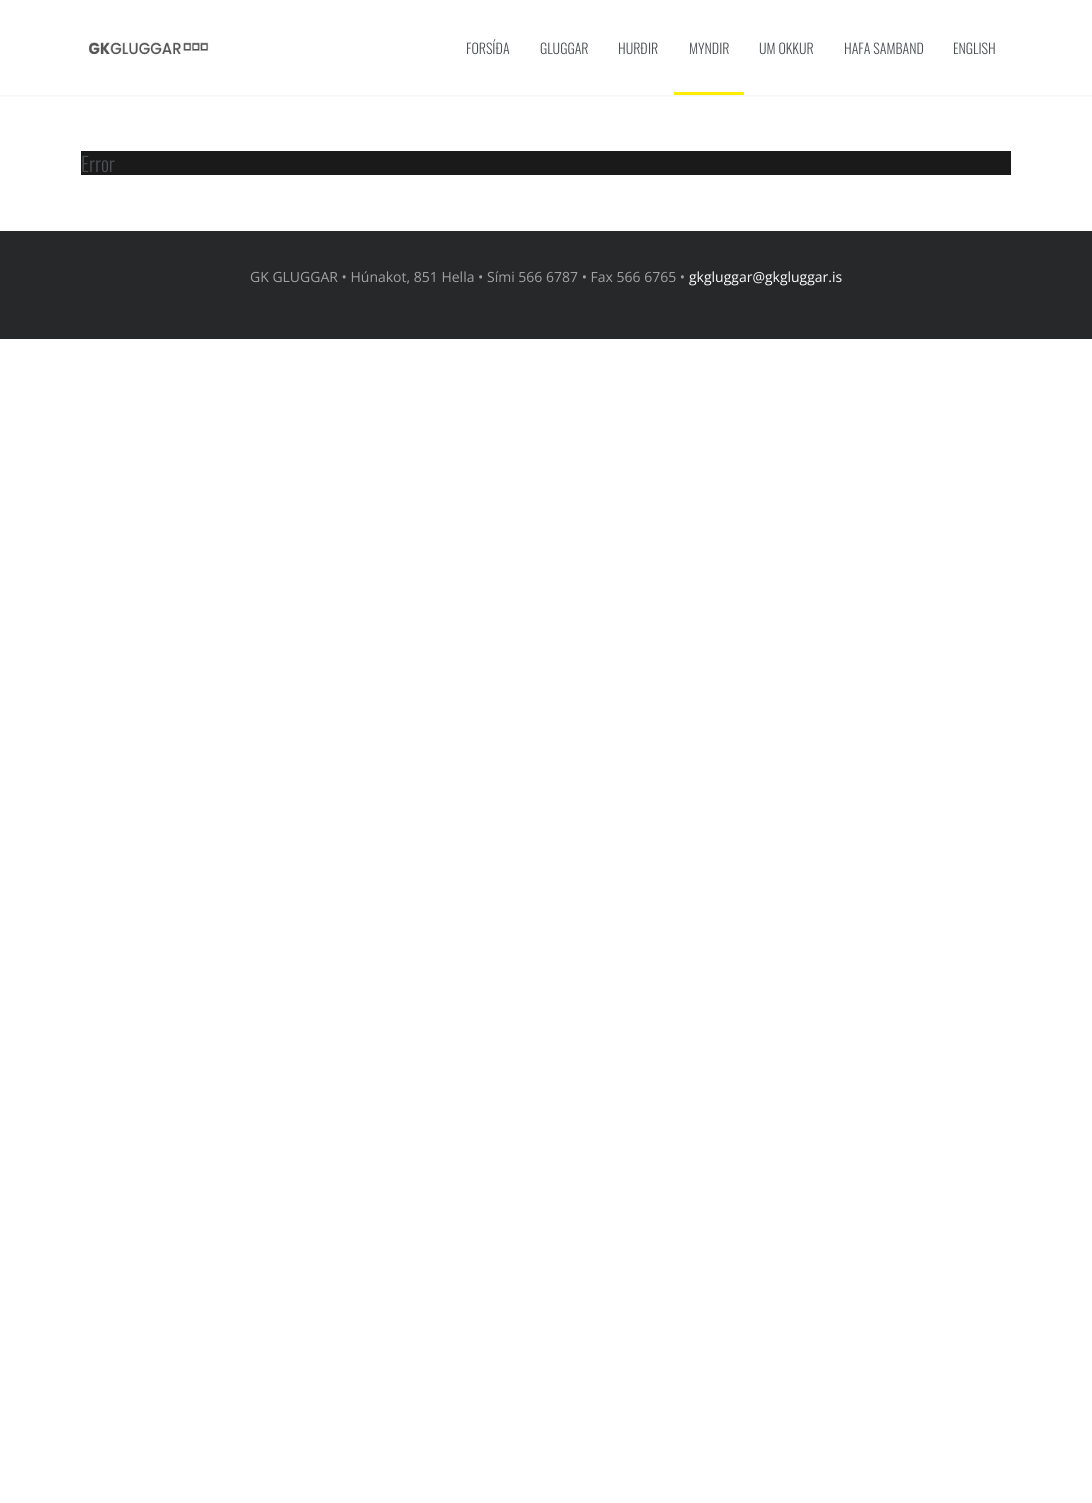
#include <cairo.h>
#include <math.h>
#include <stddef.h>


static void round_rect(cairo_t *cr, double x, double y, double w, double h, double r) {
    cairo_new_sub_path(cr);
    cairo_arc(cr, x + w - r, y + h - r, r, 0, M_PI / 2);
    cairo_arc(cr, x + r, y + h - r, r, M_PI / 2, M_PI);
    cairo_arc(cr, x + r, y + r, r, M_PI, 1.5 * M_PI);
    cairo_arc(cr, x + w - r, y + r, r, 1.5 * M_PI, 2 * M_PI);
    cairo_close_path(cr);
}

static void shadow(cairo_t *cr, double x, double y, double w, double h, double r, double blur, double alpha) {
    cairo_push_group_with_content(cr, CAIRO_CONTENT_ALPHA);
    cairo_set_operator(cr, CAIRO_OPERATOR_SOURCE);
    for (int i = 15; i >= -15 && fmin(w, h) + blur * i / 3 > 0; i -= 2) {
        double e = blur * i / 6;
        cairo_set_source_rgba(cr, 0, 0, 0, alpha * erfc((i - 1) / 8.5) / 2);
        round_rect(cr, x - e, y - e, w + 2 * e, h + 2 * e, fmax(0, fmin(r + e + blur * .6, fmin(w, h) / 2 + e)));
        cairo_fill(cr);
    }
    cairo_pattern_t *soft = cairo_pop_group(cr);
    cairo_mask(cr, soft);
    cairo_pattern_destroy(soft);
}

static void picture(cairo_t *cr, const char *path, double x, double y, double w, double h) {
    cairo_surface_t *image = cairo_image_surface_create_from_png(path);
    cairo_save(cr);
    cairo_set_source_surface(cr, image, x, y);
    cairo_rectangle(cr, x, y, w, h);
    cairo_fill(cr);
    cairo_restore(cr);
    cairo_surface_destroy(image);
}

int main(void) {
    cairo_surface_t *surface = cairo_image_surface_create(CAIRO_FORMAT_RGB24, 1092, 1503);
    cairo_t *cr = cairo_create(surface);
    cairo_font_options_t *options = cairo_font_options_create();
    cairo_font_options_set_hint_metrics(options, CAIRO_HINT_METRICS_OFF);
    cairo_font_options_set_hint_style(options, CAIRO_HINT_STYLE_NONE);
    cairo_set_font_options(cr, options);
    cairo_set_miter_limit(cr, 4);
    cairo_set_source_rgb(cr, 1, 1, 1);
    cairo_paint(cr);
    cairo_save(cr);
    cairo_rectangle(cr, 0, 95, 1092, 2);
    cairo_clip(cr);
    cairo_set_source_rgb(cr, 0, 0, 0);
    shadow(cr, 0, 0, 1092, 95, 0, 2, 0.1);
    cairo_restore(cr);
    picture(cr, "img1.png", 88, 42, 121, 13);
    cairo_select_font_face(cr, "Oswald Light", CAIRO_FONT_SLANT_NORMAL, CAIRO_FONT_WEIGHT_NORMAL);
    cairo_set_font_size(cr, 14);
    cairo_set_source_rgb(cr, 0.294, 0.306, 0.325);
    cairo_move_to(cr, 466, 54);
    cairo_show_text(cr, "FORSÍÐA");
    cairo_move_to(cr, 540, 54);
    cairo_show_text(cr, "GLUGGAR");
    cairo_move_to(cr, 618, 54);
    cairo_show_text(cr, "HURÐIR");
    cairo_set_source_rgb(cr, 1, 0.918, 0);
    cairo_rectangle(cr, 674, 92, 70, 3);
    cairo_fill(cr);
    cairo_set_source_rgb(cr, 0.294, 0.306, 0.325);
    cairo_move_to(cr, 689, 54);
    cairo_show_text(cr, "MYNDIR");
    cairo_move_to(cr, 759, 54);
    cairo_show_text(cr, "UM OKKUR");
    cairo_move_to(cr, 844, 54);
    cairo_show_text(cr, "HAFA SAMBAND");
    cairo_move_to(cr, 953, 54);
    cairo_show_text(cr, "ENGLISH");
    cairo_set_source_rgb(cr, 0.102, 0.102, 0.102);
    cairo_rectangle(cr, 81, 151, 930, 24);
    cairo_fill(cr);
    cairo_set_font_size(cr, 20);
    cairo_set_source_rgb(cr, 0.294, 0.306, 0.325);
    cairo_move_to(cr, 81, 172);
    cairo_show_text(cr, "Error");
    cairo_set_source_rgb(cr, 0.153, 0.157, 0.165);
    cairo_rectangle(cr, 0, 231, 1092, 108);
    cairo_fill(cr);
    cairo_select_font_face(cr, "Open Sans", CAIRO_FONT_SLANT_NORMAL, CAIRO_FONT_WEIGHT_NORMAL);
    cairo_set_font_size(cr, 14);
    cairo_set_source_rgb(cr, 0.631, 0.631, 0.631);
    cairo_move_to(cr, 250, 282);
    cairo_show_text(cr, "GK GLUGGAR • Húnakot, 851 Hella • Sími 566 6787 • Fax 566 6765 •");
    cairo_set_source_rgb(cr, 1, 1, 1);
    cairo_move_to(cr, 689, 282);
    cairo_show_text(cr, "gkgluggar@gkgluggar.is");
    cairo_surface_write_to_png(surface, "page.png");
    cairo_font_options_destroy(options);
    cairo_destroy(cr);
    cairo_surface_destroy(surface);
    return 0;
}
